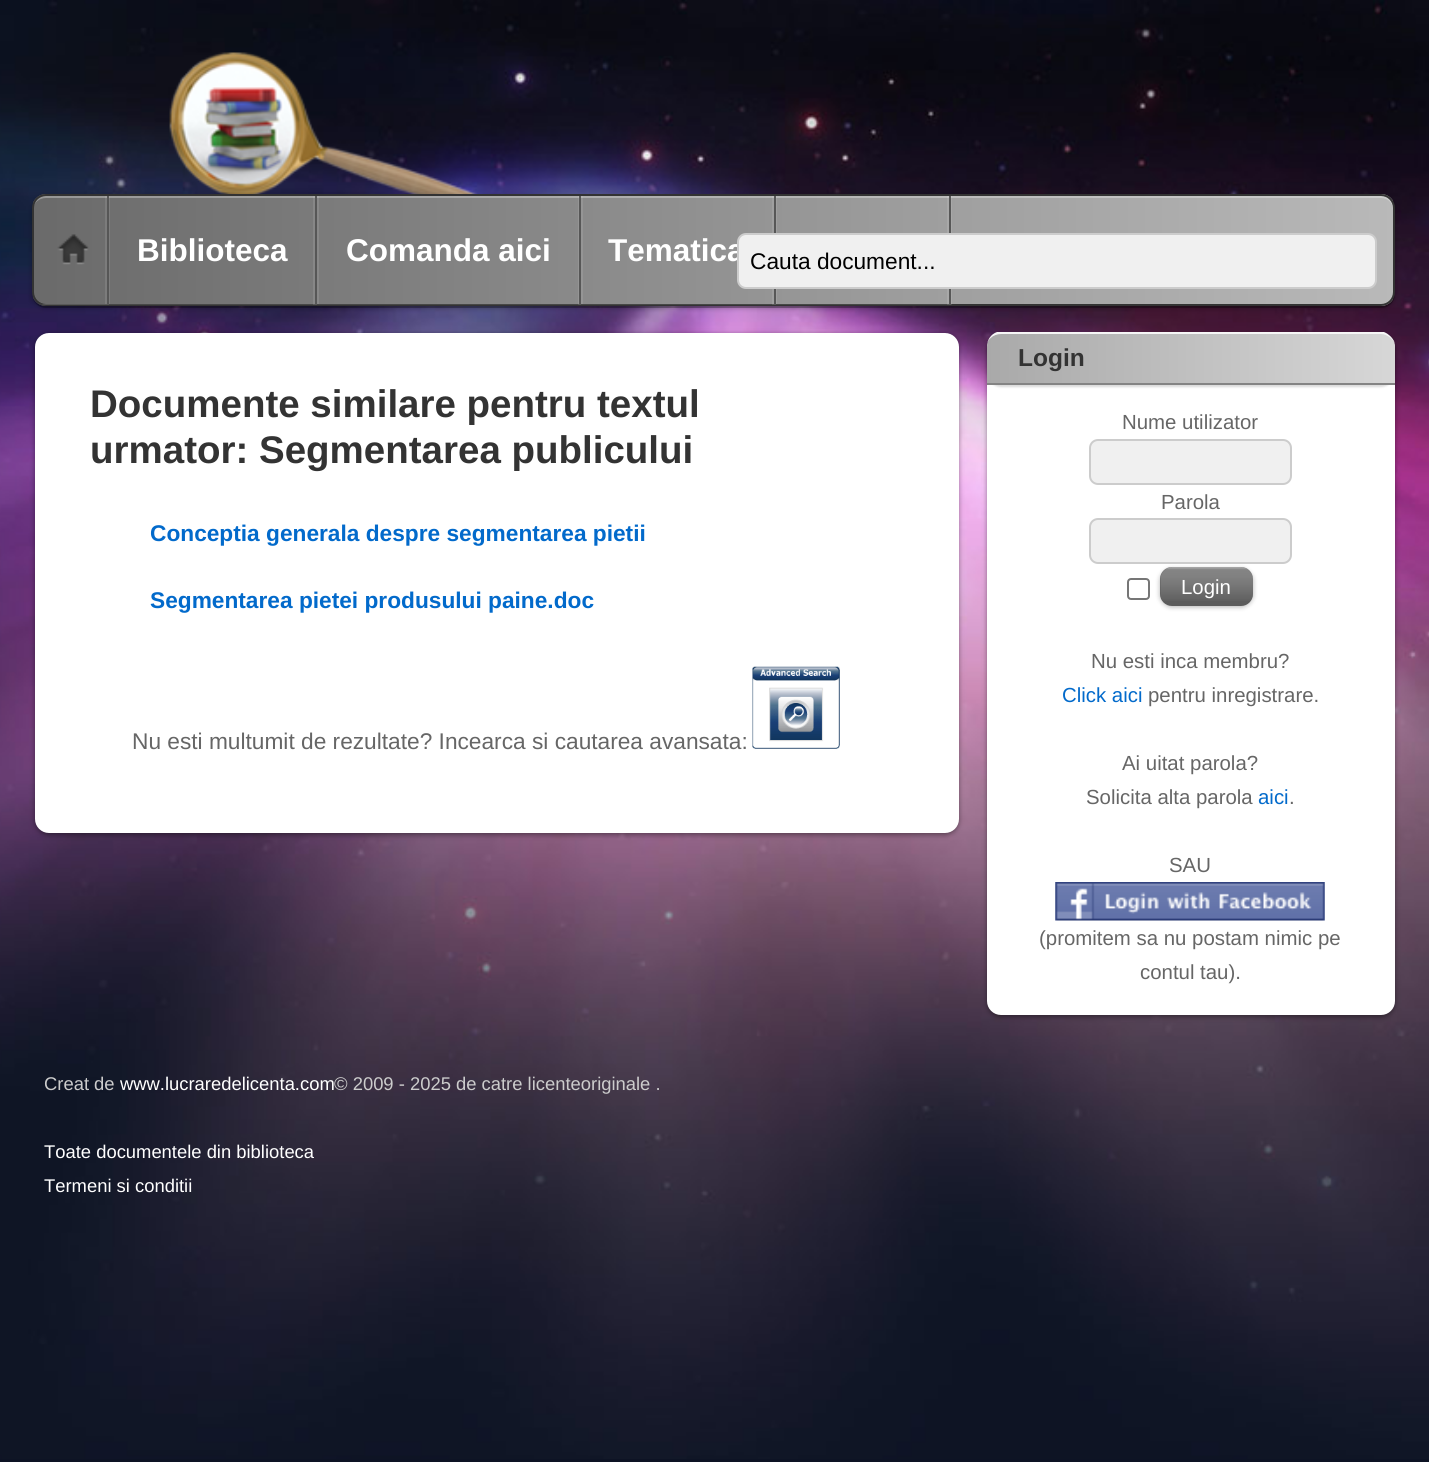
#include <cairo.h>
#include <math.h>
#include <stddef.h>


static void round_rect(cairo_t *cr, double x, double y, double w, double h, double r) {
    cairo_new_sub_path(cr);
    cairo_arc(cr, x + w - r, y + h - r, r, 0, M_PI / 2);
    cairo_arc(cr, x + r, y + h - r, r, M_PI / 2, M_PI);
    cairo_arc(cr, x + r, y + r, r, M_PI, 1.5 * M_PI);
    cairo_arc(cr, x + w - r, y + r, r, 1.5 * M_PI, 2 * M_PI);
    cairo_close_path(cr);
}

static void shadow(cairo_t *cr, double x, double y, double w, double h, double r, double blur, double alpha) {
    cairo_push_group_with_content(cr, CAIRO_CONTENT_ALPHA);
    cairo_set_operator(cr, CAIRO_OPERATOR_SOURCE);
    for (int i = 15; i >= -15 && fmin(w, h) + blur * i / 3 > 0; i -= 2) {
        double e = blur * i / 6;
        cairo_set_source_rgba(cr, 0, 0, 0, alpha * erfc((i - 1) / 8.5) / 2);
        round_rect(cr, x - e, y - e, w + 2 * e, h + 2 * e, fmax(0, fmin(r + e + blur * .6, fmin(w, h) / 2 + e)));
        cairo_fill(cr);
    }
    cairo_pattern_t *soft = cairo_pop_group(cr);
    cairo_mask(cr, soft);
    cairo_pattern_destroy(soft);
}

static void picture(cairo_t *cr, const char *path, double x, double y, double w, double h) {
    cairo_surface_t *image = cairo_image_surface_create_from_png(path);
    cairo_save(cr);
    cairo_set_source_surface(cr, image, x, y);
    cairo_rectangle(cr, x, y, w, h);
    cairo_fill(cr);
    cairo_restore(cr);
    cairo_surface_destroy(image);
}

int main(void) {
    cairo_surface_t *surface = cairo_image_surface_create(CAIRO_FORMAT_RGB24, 1429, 1462);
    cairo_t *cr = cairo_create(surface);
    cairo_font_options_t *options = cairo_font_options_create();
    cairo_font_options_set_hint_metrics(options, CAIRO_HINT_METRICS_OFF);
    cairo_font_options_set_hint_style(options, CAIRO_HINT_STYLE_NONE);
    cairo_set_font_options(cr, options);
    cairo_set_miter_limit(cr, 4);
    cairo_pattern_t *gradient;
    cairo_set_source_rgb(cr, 0.051, 0.078, 0.141);
    cairo_paint(cr);
    picture(cr, "img1.png", 0, 0, 1429, 1459);
    picture(cr, "img2.png", 169, 52, 309, 142);
    cairo_set_source_rgb(cr, 0, 0, 0);
    shadow(cr, 32, 196, 1363, 112, 14, 2.5, 0.3);
    cairo_set_source_rgba(cr, 0, 0, 0, 0.3);
    cairo_new_path(cr);
    cairo_move_to(cr, 32, 297);
    cairo_curve_to(cr, 34, 303, 39, 308, 46, 308);
    cairo_line_to(cr, 1381, 308);
    cairo_curve_to(cr, 1389, 308, 1395, 302, 1395, 294);
    cairo_line_to(cr, 1395, 207);
    cairo_line_to(cr, 1395, 292);
    cairo_curve_to(cr, 1395, 300, 1388, 306, 1381, 306);
    cairo_line_to(cr, 46, 306);
    cairo_curve_to(cr, 39, 306, 34, 302, 32, 297);
    cairo_close_path(cr);
    cairo_fill(cr);
    cairo_save(cr);
    round_rect(cr, 32, 194, 1363, 112, 14);
    cairo_clip(cr);
    gradient = cairo_pattern_create_linear(1393, 250, 33, 250);
    cairo_pattern_add_color_stop_rgba(gradient, 0, 0.725, 0.725, 0.725, 1);
    cairo_pattern_add_color_stop_rgba(gradient, 1, 0.416, 0.416, 0.416, 1);
    cairo_set_source(cr, gradient);
    cairo_pattern_destroy(gradient);
    cairo_rectangle(cr, 33, 194, 1360, 112);
    cairo_fill(cr);
    cairo_restore(cr);
    cairo_set_source_rgba(cr, 1, 1, 1, 0.3);
    cairo_new_path(cr);
    cairo_move_to(cr, 46, 198);
    cairo_line_to(cr, 1381, 198);
    cairo_curve_to(cr, 1388, 198, 1393, 203, 1393, 210);
    cairo_line_to(cr, 1393, 208);
    cairo_curve_to(cr, 1393, 201, 1388, 196, 1381, 196);
    cairo_line_to(cr, 45, 196);
    cairo_curve_to(cr, 38, 196, 33, 201, 33, 208);
    cairo_line_to(cr, 33, 210);
    cairo_curve_to(cr, 33, 203, 39, 198, 46, 198);
    cairo_close_path(cr);
    cairo_fill(cr);
    round_rect(cr, 33, 195, 1361, 110, 13);
    cairo_set_source_rgb(cr, 0.2, 0.2, 0.2);
    cairo_stroke(cr);
    cairo_set_source_rgba(cr, 1, 1, 1, 0.1);
    cairo_new_path(cr);
    cairo_move_to(cr, 42, 304);
    cairo_line_to(cr, 46, 305);
    cairo_line_to(cr, 110, 305);
    cairo_line_to(cr, 110, 196);
    cairo_line_to(cr, 108, 196);
    cairo_line_to(cr, 108, 304);
    cairo_close_path(cr);
    cairo_fill(cr);
    cairo_new_path(cr);
    cairo_move_to(cr, 38, 303);
    cairo_curve_to(cr, 40, 304, 42, 305, 44, 305);
    cairo_line_to(cr, 107, 305);
    cairo_line_to(cr, 107, 196);
    cairo_line_to(cr, 105, 196);
    cairo_line_to(cr, 105, 304);
    cairo_line_to(cr, 42, 304);
    cairo_close_path(cr);
    cairo_fill(cr);
    cairo_set_source_rgb(cr, 0.341, 0.341, 0.341);
    cairo_rectangle(cr, 107, 196, 2, 109);
    cairo_fill(cr);
    picture(cr, "img3.png", 57, 234, 32, 31);
    cairo_set_source_rgba(cr, 1, 1, 1, 0.1);
    cairo_new_path(cr);
    cairo_move_to(cr, 110, 304);
    cairo_line_to(cr, 110, 305);
    cairo_line_to(cr, 319, 305);
    cairo_line_to(cr, 319, 196);
    cairo_line_to(cr, 317, 196);
    cairo_line_to(cr, 317, 304);
    cairo_close_path(cr);
    cairo_fill(cr);
    cairo_rectangle(cr, 313, 196, 2, 109);
    cairo_fill(cr);
    cairo_set_source_rgb(cr, 0.341, 0.341, 0.341);
    cairo_rectangle(cr, 315, 196, 2, 109);
    cairo_fill(cr);
    cairo_select_font_face(cr, "Liberation Sans", CAIRO_FONT_SLANT_NORMAL, CAIRO_FONT_WEIGHT_BOLD);
    cairo_set_font_size(cr, 31.5);
    cairo_set_source_rgb(cr, 1, 1, 1);
    cairo_move_to(cr, 137, 261);
    cairo_show_text(cr, "Biblioteca");
    cairo_set_source_rgba(cr, 1, 1, 1, 0.1);
    cairo_new_path(cr);
    cairo_move_to(cr, 319, 304);
    cairo_line_to(cr, 319, 305);
    cairo_line_to(cr, 583, 305);
    cairo_line_to(cr, 583, 196);
    cairo_line_to(cr, 581, 196);
    cairo_line_to(cr, 581, 304);
    cairo_close_path(cr);
    cairo_fill(cr);
    cairo_rectangle(cr, 578, 196, 1, 109);
    cairo_fill(cr);
    cairo_set_source_rgb(cr, 0.341, 0.341, 0.341);
    cairo_rectangle(cr, 579, 196, 2, 109);
    cairo_fill(cr);
    cairo_set_source_rgb(cr, 1, 1, 1);
    cairo_move_to(cr, 346, 261);
    cairo_show_text(cr, "Comanda aici");
    cairo_set_source_rgba(cr, 1, 1, 1, 0.1);
    cairo_new_path(cr);
    cairo_move_to(cr, 583, 304);
    cairo_line_to(cr, 583, 305);
    cairo_line_to(cr, 777, 305);
    cairo_line_to(cr, 777, 196);
    cairo_line_to(cr, 775, 196);
    cairo_line_to(cr, 775, 304);
    cairo_close_path(cr);
    cairo_fill(cr);
    cairo_rectangle(cr, 772, 196, 2, 109);
    cairo_fill(cr);
    cairo_set_source_rgb(cr, 0.341, 0.341, 0.341);
    cairo_rectangle(cr, 774, 196, 2, 109);
    cairo_fill(cr);
    cairo_set_source_rgb(cr, 1, 1, 1);
    cairo_move_to(cr, 608, 261);
    cairo_show_text(cr, "Tematica");
    cairo_set_source_rgba(cr, 1, 1, 1, 0.1);
    cairo_new_path(cr);
    cairo_move_to(cr, 777, 304);
    cairo_line_to(cr, 777, 305);
    cairo_line_to(cr, 952, 305);
    cairo_line_to(cr, 952, 196);
    cairo_line_to(cr, 950, 196);
    cairo_line_to(cr, 950, 304);
    cairo_close_path(cr);
    cairo_fill(cr);
    cairo_rectangle(cr, 947, 196, 2, 109);
    cairo_fill(cr);
    cairo_set_source_rgb(cr, 0.341, 0.341, 0.341);
    cairo_rectangle(cr, 949, 196, 2, 109);
    cairo_fill(cr);
    cairo_set_source_rgb(cr, 0.941, 0.941, 0.941);
    round_rect(cr, 738, 234, 638, 54, 8);
    cairo_fill_preserve(cr);
    cairo_set_source_rgb(cr, 0.8, 0.8, 0.8);
    cairo_stroke(cr);
    cairo_select_font_face(cr, "Liberation Sans", CAIRO_FONT_SLANT_NORMAL, CAIRO_FONT_WEIGHT_NORMAL);
    cairo_set_font_size(cr, 22.7);
    cairo_set_source_rgb(cr, 0, 0, 0);
    cairo_move_to(cr, 750, 269);
    cairo_show_text(cr, "Cauta document...");
    cairo_set_source_rgb(cr, 0, 0, 0);
    shadow(cr, 35, 334, 924, 501, 14, 2.5, 0.4);
    cairo_set_source_rgb(cr, 1, 1, 1);
    round_rect(cr, 35, 333, 924, 500, 14);
    cairo_fill(cr);
    cairo_select_font_face(cr, "Liberation Sans", CAIRO_FONT_SLANT_NORMAL, CAIRO_FONT_WEIGHT_BOLD);
    cairo_set_font_size(cr, 38.5);
    cairo_set_source_rgb(cr, 0.2, 0.2, 0.2);
    cairo_move_to(cr, 90, 417);
    cairo_show_text(cr, "Documente similare pentru textul");
    cairo_move_to(cr, 90, 463);
    cairo_show_text(cr, "urmator: Segmentarea publicului");
    cairo_set_font_size(cr, 22.7);
    cairo_set_source_rgb(cr, 0.008, 0.416, 0.796);
    cairo_move_to(cr, 150, 541);
    cairo_show_text(cr, "Conceptia generala despre segmentarea pietii");
    cairo_move_to(cr, 150, 608);
    cairo_show_text(cr, "Segmentarea pietei produsului paine.doc");
    cairo_select_font_face(cr, "Liberation Sans", CAIRO_FONT_SLANT_NORMAL, CAIRO_FONT_WEIGHT_NORMAL);
    cairo_set_source_rgb(cr, 0.4, 0.4, 0.4);
    cairo_move_to(cr, 132, 749);
    cairo_show_text(cr, "Nu esti multumit de rezultate? Incearca si cautarea avansata:");
    picture(cr, "img4.png", 752, 666, 88, 83);
    cairo_set_source_rgb(cr, 0, 0, 0);
    shadow(cr, 987, 336, 408, 681, 14, 2.5, 0.4);
    cairo_set_source_rgb(cr, 1, 1, 1);
    round_rect(cr, 987, 334, 408, 681, 14);
    cairo_fill(cr);
    cairo_set_source_rgb(cr, 0, 0, 0);
    shadow(cr, 987, 334, 408, 53, 14, 1, 0.15);
    gradient = cairo_pattern_create_linear(1395, 359, 987, 359);
    cairo_pattern_add_color_stop_rgba(gradient, 0, 0.843, 0.843, 0.843, 1);
    cairo_pattern_add_color_stop_rgba(gradient, 1, 0.663, 0.663, 0.663, 1);
    cairo_set_source(cr, gradient);
    cairo_pattern_destroy(gradient);
    cairo_new_path(cr);
    cairo_move_to(cr, 1001, 333);
    cairo_line_to(cr, 1381, 333);
    cairo_curve_to(cr, 1388.5, 333, 1395, 339.5, 1395, 347);
    cairo_line_to(cr, 1395, 385);
    cairo_line_to(cr, 987, 385);
    cairo_line_to(cr, 987, 347);
    cairo_curve_to(cr, 987, 339.5, 993.5, 333, 1001, 333);
    cairo_close_path(cr);
    cairo_fill(cr);
    cairo_set_source_rgb(cr, 0.961, 0.961, 0.961);
    cairo_new_path(cr);
    cairo_move_to(cr, 1001, 334);
    cairo_curve_to(cr, 993, 334, 987, 340, 987, 346);
    cairo_curve_to(cr, 987, 340, 991, 334, 997, 332);
    cairo_line_to(cr, 1384, 332);
    cairo_curve_to(cr, 1389, 334, 1394, 339, 1395, 344);
    cairo_curve_to(cr, 1393, 339, 1387, 334, 1381, 334);
    cairo_close_path(cr);
    cairo_fill(cr);
    cairo_set_source_rgb(cr, 0.518, 0.518, 0.518);
    cairo_rectangle(cr, 987, 383, 408, 2);
    cairo_fill(cr);
    cairo_select_font_face(cr, "Liberation Sans", CAIRO_FONT_SLANT_NORMAL, CAIRO_FONT_WEIGHT_BOLD);
    cairo_set_font_size(cr, 24.5);
    cairo_set_source_rgb(cr, 0.2, 0.2, 0.2);
    cairo_move_to(cr, 1018, 366);
    cairo_show_text(cr, "Login");
    cairo_select_font_face(cr, "Liberation Sans", CAIRO_FONT_SLANT_NORMAL, CAIRO_FONT_WEIGHT_NORMAL);
    cairo_set_font_size(cr, 20.4);
    cairo_set_source_rgb(cr, 0.4, 0.4, 0.4);
    cairo_move_to(cr, 1122, 429);
    cairo_show_text(cr, "Nume utilizator");
    cairo_set_source_rgb(cr, 0.941, 0.941, 0.941);
    round_rect(cr, 1090, 440, 201, 44, 8);
    cairo_fill_preserve(cr);
    cairo_set_source_rgb(cr, 0.8, 0.8, 0.8);
    cairo_stroke(cr);
    cairo_set_source_rgb(cr, 0.4, 0.4, 0.4);
    cairo_move_to(cr, 1161, 509);
    cairo_show_text(cr, "Parola");
    cairo_set_source_rgb(cr, 0.941, 0.941, 0.941);
    round_rect(cr, 1090, 519, 201, 44, 8);
    cairo_fill_preserve(cr);
    cairo_set_source_rgb(cr, 0.8, 0.8, 0.8);
    cairo_stroke(cr);
    round_rect(cr, 1128, 579, 21, 20, 3);
    cairo_set_source_rgb(cr, 0.463, 0.463, 0.463);
    cairo_stroke(cr);
    cairo_set_source_rgb(cr, 0, 0, 0);
    shadow(cr, 1160, 569, 93, 38, 12, 2.5, 0.3);
    cairo_set_source_rgb(cr, 0.361, 0.361, 0.361);
    round_rect(cr, 1160, 567, 93, 39, 12);
    cairo_fill(cr);
    picture(cr, "img5.png", 1160, 567, 93, 34);
    cairo_set_source_rgb(cr, 1, 1, 1);
    cairo_move_to(cr, 1181, 594);
    cairo_show_text(cr, "Login");
    cairo_set_source_rgb(cr, 0.4, 0.4, 0.4);
    cairo_move_to(cr, 1091, 668);
    cairo_show_text(cr, "Nu esti inca membru?");
    cairo_set_source_rgb(cr, 0.008, 0.416, 0.796);
    cairo_move_to(cr, 1062, 702);
    cairo_show_text(cr, "Click aici");
    cairo_set_source_rgb(cr, 0.4, 0.4, 0.4);
    cairo_move_to(cr, 1148, 702);
    cairo_show_text(cr, "pentru inregistrare.");
    cairo_move_to(cr, 1122, 770);
    cairo_show_text(cr, "Ai uitat parola?");
    cairo_move_to(cr, 1086, 804);
    cairo_show_text(cr, "Solicita alta parola");
    cairo_set_source_rgb(cr, 0.008, 0.416, 0.796);
    cairo_move_to(cr, 1258, 804);
    cairo_show_text(cr, "aici");
    cairo_set_source_rgb(cr, 0.4, 0.4, 0.4);
    cairo_move_to(cr, 1289, 804);
    cairo_show_text(cr, ".");
    cairo_move_to(cr, 1169, 872);
    cairo_show_text(cr, "SAU");
    picture(cr, "img6.png", 1055, 882, 270, 39);
    cairo_move_to(cr, 1039, 945);
    cairo_show_text(cr, "(promitem sa nu postam nimic pe");
    cairo_move_to(cr, 1140, 979);
    cairo_show_text(cr, "contul tau).");
    cairo_set_font_size(cr, 18.4);
    cairo_set_source_rgb(cr, 0.8, 0.8, 0.8);
    cairo_move_to(cr, 44, 1090);
    cairo_show_text(cr, "Creat de");
    cairo_set_source_rgb(cr, 1, 1, 1);
    cairo_move_to(cr, 120, 1090);
    cairo_show_text(cr, "www.lucraredelicenta.com");
    cairo_set_source_rgb(cr, 0.8, 0.8, 0.8);
    cairo_move_to(cr, 334, 1090);
    cairo_show_text(cr, "© 2009 - 2025 de catre licenteoriginale .");
    cairo_set_source_rgb(cr, 1, 1, 1);
    cairo_move_to(cr, 44, 1158);
    cairo_show_text(cr, "Toate documentele din biblioteca");
    cairo_move_to(cr, 44, 1192);
    cairo_show_text(cr, "Termeni si conditii");
    cairo_surface_write_to_png(surface, "page.png");
    cairo_font_options_destroy(options);
    cairo_destroy(cr);
    cairo_surface_destroy(surface);
    return 0;
}
